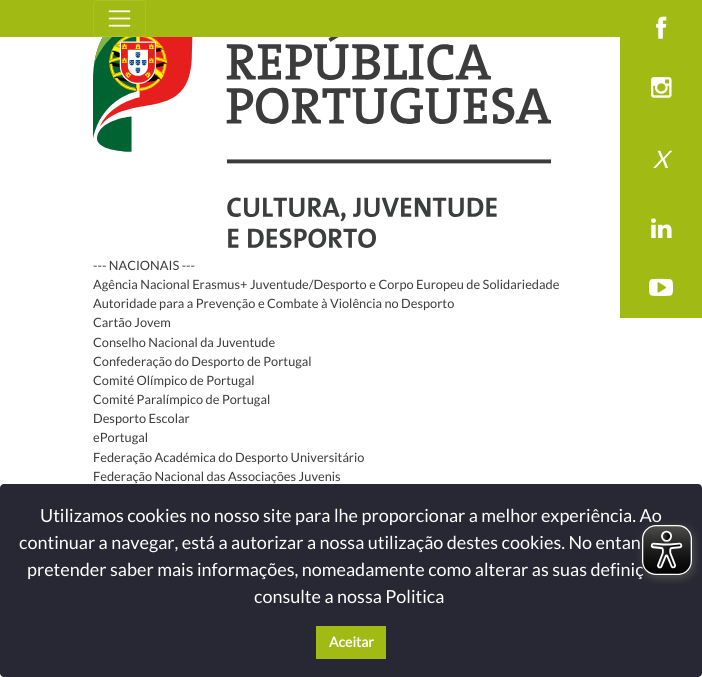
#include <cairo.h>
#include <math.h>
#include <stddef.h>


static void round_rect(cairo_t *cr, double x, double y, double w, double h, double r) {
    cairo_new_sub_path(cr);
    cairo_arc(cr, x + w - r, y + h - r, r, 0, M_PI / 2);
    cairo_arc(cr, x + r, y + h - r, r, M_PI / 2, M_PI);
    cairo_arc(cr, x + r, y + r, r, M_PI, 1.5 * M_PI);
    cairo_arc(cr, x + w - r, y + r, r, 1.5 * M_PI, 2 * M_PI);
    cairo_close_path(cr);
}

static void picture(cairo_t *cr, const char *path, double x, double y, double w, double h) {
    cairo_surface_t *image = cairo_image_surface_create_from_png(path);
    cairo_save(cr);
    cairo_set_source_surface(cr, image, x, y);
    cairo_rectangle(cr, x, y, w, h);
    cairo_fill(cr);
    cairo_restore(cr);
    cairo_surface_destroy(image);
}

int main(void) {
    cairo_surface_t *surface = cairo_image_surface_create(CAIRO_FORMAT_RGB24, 702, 677);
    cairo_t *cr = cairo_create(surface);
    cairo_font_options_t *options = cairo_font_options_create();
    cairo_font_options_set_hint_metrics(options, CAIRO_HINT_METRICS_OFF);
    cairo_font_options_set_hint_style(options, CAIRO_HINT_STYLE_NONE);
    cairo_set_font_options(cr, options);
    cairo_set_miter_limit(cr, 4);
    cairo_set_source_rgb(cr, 1, 1, 1);
    cairo_paint(cr);
    cairo_set_source_rgb(cr, 0.631, 0.733, 0.082);
    cairo_rectangle(cr, 0, 0, 620, 37);
    cairo_fill(cr);
    round_rect(cr, 93.5, 0.5, 52, 36, 3.5);
    cairo_set_source_rgb(cr, 0.667, 0.761, 0.173);
    cairo_set_line_width(cr, 1);
    cairo_stroke(cr);
    picture(cr, "img1.png", 108, 10, 23, 17);
    cairo_set_source_rgb(cr, 0.631, 0.733, 0.082);
    cairo_rectangle(cr, 620, 0, 82, 318);
    cairo_fill(cr);
    picture(cr, "img2.png", 656, 16, 11, 23);
    picture(cr, "img3.png", 651, 77, 21, 21);
    cairo_select_font_face(cr, "Lato", CAIRO_FONT_SLANT_ITALIC, CAIRO_FONT_WEIGHT_NORMAL);
    cairo_set_font_size(cr, 24);
    cairo_set_source_rgb(cr, 1, 1, 1);
    cairo_move_to(cr, 653, 168);
    cairo_show_text(cr, "X");
    picture(cr, "img4.png", 651, 218, 21, 21);
    picture(cr, "img5.png", 649, 278, 24, 18);
    picture(cr, "img6.png", 93, 37, 458, 211);
    cairo_select_font_face(cr, "Lato", CAIRO_FONT_SLANT_NORMAL, CAIRO_FONT_WEIGHT_NORMAL);
    cairo_set_font_size(cr, 12.8);
    cairo_set_source_rgb(cr, 0.231, 0.231, 0.231);
    cairo_move_to(cr, 93, 270);
    cairo_show_text(cr, "--- NACIONAIS ---");
    cairo_move_to(cr, 93, 289);
    cairo_show_text(cr, "Agência Nacional Erasmus+ Juventude/Desporto e Corpo Europeu de Solidariedade");
    cairo_move_to(cr, 93, 308);
    cairo_show_text(cr, "Autoridade para a Prevenção e Combate à Violência no Desporto");
    cairo_move_to(cr, 93, 327);
    cairo_show_text(cr, "Cartão Jovem");
    cairo_move_to(cr, 93, 347);
    cairo_show_text(cr, "Conselho Nacional da Juventude");
    cairo_move_to(cr, 93, 366);
    cairo_show_text(cr, "Confederação do Desporto de Portugal");
    cairo_move_to(cr, 93, 385);
    cairo_show_text(cr, "Comité Olímpico de Portugal");
    cairo_move_to(cr, 93, 404);
    cairo_show_text(cr, "Comité Paralímpico de Portugal");
    cairo_move_to(cr, 93, 423);
    cairo_show_text(cr, "Desporto Escolar");
    cairo_move_to(cr, 93, 442);
    cairo_show_text(cr, "ePortugal");
    cairo_move_to(cr, 93, 462);
    cairo_show_text(cr, "Federação Académica do Desporto Universitário");
    cairo_move_to(cr, 93, 481);
    cairo_show_text(cr, "Federação Nacional das Associações Juvenis");
    cairo_set_source_rgb(cr, 0.153, 0.157, 0.2);
    round_rect(cr, 0, 484, 702, 193, 4);
    cairo_fill(cr);
    cairo_set_font_size(cr, 18);
    cairo_set_source_rgb(cr, 1, 1, 1);
    cairo_move_to(cr, 40, 522);
    cairo_show_text(cr, "Utilizamos cookies no nosso site para lhe proporcionar a melhor experiência. Ao");
    cairo_move_to(cr, 19, 549);
    cairo_show_text(cr, "continuar a navegar, está a autorizar a nossa utilização destes cookies. No entan");
    cairo_move_to(cr, 27, 576);
    cairo_show_text(cr, "pretender saber mais informações, nomeadamente como alterar as suas definiç");
    cairo_move_to(cr, 254, 603);
    cairo_show_text(cr, "consulte a nossa Politica");
    cairo_set_source_rgb(cr, 0.631, 0.733, 0.082);
    cairo_rectangle(cr, 316, 626, 70, 33);
    cairo_fill(cr);
    cairo_select_font_face(cr, "Lato", CAIRO_FONT_SLANT_NORMAL, CAIRO_FONT_WEIGHT_BOLD);
    cairo_set_font_size(cr, 14);
    cairo_set_source_rgb(cr, 1, 1, 1);
    cairo_move_to(cr, 329, 647);
    cairo_show_text(cr, "Aceitar");
    picture(cr, "img7.png", 636, 520, 64, 64);
    cairo_surface_write_to_png(surface, "page.png");
    cairo_font_options_destroy(options);
    cairo_destroy(cr);
    cairo_surface_destroy(surface);
    return 0;
}
